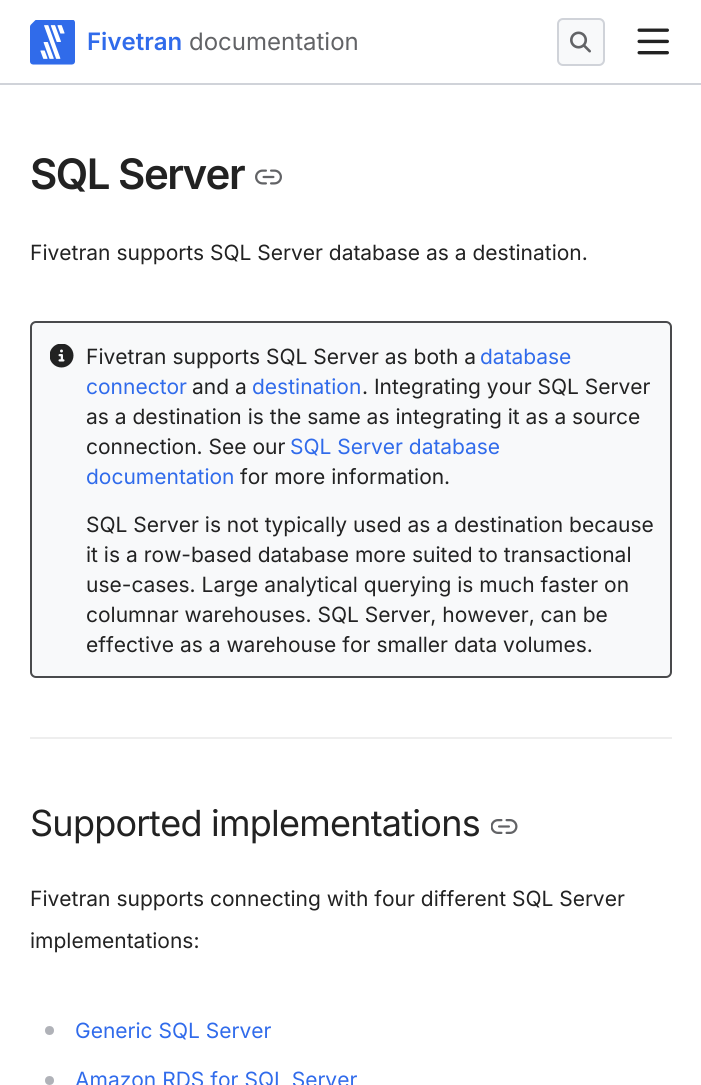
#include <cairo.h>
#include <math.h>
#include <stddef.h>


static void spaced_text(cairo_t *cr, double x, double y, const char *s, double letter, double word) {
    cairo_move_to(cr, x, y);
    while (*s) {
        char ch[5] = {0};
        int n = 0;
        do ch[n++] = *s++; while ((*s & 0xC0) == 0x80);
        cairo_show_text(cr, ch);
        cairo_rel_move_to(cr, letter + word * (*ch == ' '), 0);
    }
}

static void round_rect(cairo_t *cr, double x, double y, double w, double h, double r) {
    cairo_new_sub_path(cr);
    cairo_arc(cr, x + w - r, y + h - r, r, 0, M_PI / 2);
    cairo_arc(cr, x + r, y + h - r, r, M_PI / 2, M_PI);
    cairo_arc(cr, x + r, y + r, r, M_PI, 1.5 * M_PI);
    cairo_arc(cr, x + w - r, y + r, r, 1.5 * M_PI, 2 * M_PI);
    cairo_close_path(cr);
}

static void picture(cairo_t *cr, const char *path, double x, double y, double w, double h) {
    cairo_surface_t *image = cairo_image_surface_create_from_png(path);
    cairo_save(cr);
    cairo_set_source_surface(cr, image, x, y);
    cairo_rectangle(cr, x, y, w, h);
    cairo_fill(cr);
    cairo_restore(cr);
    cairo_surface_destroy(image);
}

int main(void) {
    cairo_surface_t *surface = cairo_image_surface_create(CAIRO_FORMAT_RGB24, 701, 1085);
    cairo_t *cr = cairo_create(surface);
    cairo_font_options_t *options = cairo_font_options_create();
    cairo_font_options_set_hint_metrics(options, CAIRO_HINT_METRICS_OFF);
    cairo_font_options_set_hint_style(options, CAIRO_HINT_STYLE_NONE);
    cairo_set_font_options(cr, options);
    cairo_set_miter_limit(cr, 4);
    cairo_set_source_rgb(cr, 1, 1, 1);
    cairo_paint(cr);
    cairo_set_source_rgb(cr, 0.816, 0.827, 0.851);
    cairo_rectangle(cr, 0, 83, 701, 2);
    cairo_fill(cr);
    picture(cr, "img1.png", 30, 20, 45, 45);
    cairo_select_font_face(cr, "Inter SemiBold", CAIRO_FONT_SLANT_NORMAL, CAIRO_FONT_WEIGHT_NORMAL);
    cairo_set_font_size(cr, 24);
    cairo_set_source_rgb(cr, 0.188, 0.42, 0.918);
    cairo_move_to(cr, 87, 50);
    cairo_show_text(cr, "Fivetran");
    cairo_select_font_face(cr, "Inter", CAIRO_FONT_SLANT_NORMAL, CAIRO_FONT_WEIGHT_NORMAL);
    cairo_set_source_rgb(cr, 0.384, 0.388, 0.4);
    cairo_move_to(cr, 189, 50);
    cairo_show_text(cr, "documentation");
    cairo_set_source_rgb(cr, 0.969, 0.973, 0.98);
    round_rect(cr, 558, 19, 46, 46, 5);
    cairo_fill_preserve(cr);
    cairo_set_source_rgb(cr, 0.816, 0.827, 0.851);
    cairo_stroke(cr);
    picture(cr, "img2.png", 570, 31, 21, 22);
    picture(cr, "img3.png", 637, 28, 32, 27);
    cairo_select_font_face(cr, "Inter SemiBold", CAIRO_FONT_SLANT_NORMAL, CAIRO_FONT_WEIGHT_NORMAL);
    cairo_set_font_size(cr, 42);
    cairo_set_source_rgb(cr, 0.133, 0.133, 0.133);
    spaced_text(cr, 30, 189, "SQL Server", -1.5, 0);
    picture(cr, "img4.png", 255, 169, 27, 16);
    cairo_select_font_face(cr, "Inter", CAIRO_FONT_SLANT_NORMAL, CAIRO_FONT_WEIGHT_NORMAL);
    cairo_set_font_size(cr, 21);
    cairo_move_to(cr, 30, 260);
    cairo_show_text(cr, "Fivetran supports SQL Server database as a destination.");
    cairo_set_source_rgb(cr, 0.969, 0.973, 0.98);
    round_rect(cr, 31, 322, 640, 355, 5);
    cairo_fill_preserve(cr);
    cairo_set_source_rgb(cr, 0.286, 0.29, 0.298);
    cairo_stroke(cr);
    picture(cr, "img5.png", 50, 344, 24, 24);
    cairo_set_source_rgb(cr, 0.133, 0.133, 0.133);
    cairo_move_to(cr, 86, 364);
    cairo_show_text(cr, "Fivetran supports SQL Server as both a");
    cairo_set_source_rgb(cr, 0.188, 0.42, 0.918);
    cairo_move_to(cr, 480, 364);
    cairo_show_text(cr, "database");
    cairo_move_to(cr, 86, 394);
    cairo_show_text(cr, "connector");
    cairo_set_source_rgb(cr, 0.133, 0.133, 0.133);
    cairo_move_to(cr, 192, 394);
    cairo_show_text(cr, "and a");
    cairo_set_source_rgb(cr, 0.188, 0.42, 0.918);
    cairo_move_to(cr, 252, 394);
    cairo_show_text(cr, "destination");
    cairo_set_source_rgb(cr, 0.133, 0.133, 0.133);
    cairo_move_to(cr, 362, 394);
    cairo_show_text(cr, ". Integrating your SQL Server");
    cairo_move_to(cr, 86, 424);
    cairo_show_text(cr, "as a destination is the same as integrating it as a source");
    cairo_move_to(cr, 86, 454);
    cairo_show_text(cr, "connection. See our");
    cairo_set_source_rgb(cr, 0.188, 0.42, 0.918);
    cairo_move_to(cr, 290, 454);
    cairo_show_text(cr, "SQL Server database");
    cairo_move_to(cr, 86, 484);
    cairo_show_text(cr, "documentation");
    cairo_set_source_rgb(cr, 0.133, 0.133, 0.133);
    cairo_move_to(cr, 240, 484);
    cairo_show_text(cr, "for more information.");
    cairo_move_to(cr, 86, 532);
    cairo_show_text(cr, "SQL Server is not typically used as a destination because");
    cairo_move_to(cr, 86, 562);
    cairo_show_text(cr, "it is a row-based database more suited to transactional");
    cairo_move_to(cr, 86, 592);
    cairo_show_text(cr, "use-cases. Large analytical querying is much faster on");
    cairo_move_to(cr, 86, 622);
    cairo_show_text(cr, "columnar warehouses. SQL Server, however, can be");
    cairo_move_to(cr, 86, 652);
    cairo_show_text(cr, "effective as a warehouse for smaller data volumes.");
    cairo_set_source_rgb(cr, 0.933, 0.933, 0.933);
    cairo_rectangle(cr, 30, 737, 642, 2);
    cairo_fill(cr);
    cairo_set_font_size(cr, 36);
    cairo_set_source_rgb(cr, 0.133, 0.133, 0.133);
    spaced_text(cr, 30, 836, "Supported implementations", -0.75, 0);
    picture(cr, "img6.png", 491, 819, 27, 15);
    cairo_set_font_size(cr, 21);
    cairo_move_to(cr, 30, 906);
    cairo_show_text(cr, "Fivetran supports connecting with four different SQL Server");
    cairo_move_to(cr, 30, 948);
    cairo_show_text(cr, "implementations:");
    cairo_set_source_rgb(cr, 0.69, 0.698, 0.722);
    cairo_new_path(cr);
    cairo_arc(cr, 49.5, 1030.5, 4.5, 0, 2 * M_PI);
    cairo_fill(cr);
    cairo_set_source_rgb(cr, 0.188, 0.42, 0.918);
    cairo_move_to(cr, 75, 1038);
    cairo_show_text(cr, "Generic SQL Server");
    cairo_set_source_rgb(cr, 0.69, 0.698, 0.722);
    cairo_new_path(cr);
    cairo_arc(cr, 49.5, 1080.5, 4.5, 0, 2 * M_PI);
    cairo_fill(cr);
    cairo_set_source_rgb(cr, 0.188, 0.42, 0.918);
    cairo_move_to(cr, 75, 1087);
    cairo_show_text(cr, "Amazon RDS for SQL Server");
    cairo_surface_write_to_png(surface, "page.png");
    cairo_font_options_destroy(options);
    cairo_destroy(cr);
    cairo_surface_destroy(surface);
    return 0;
}
